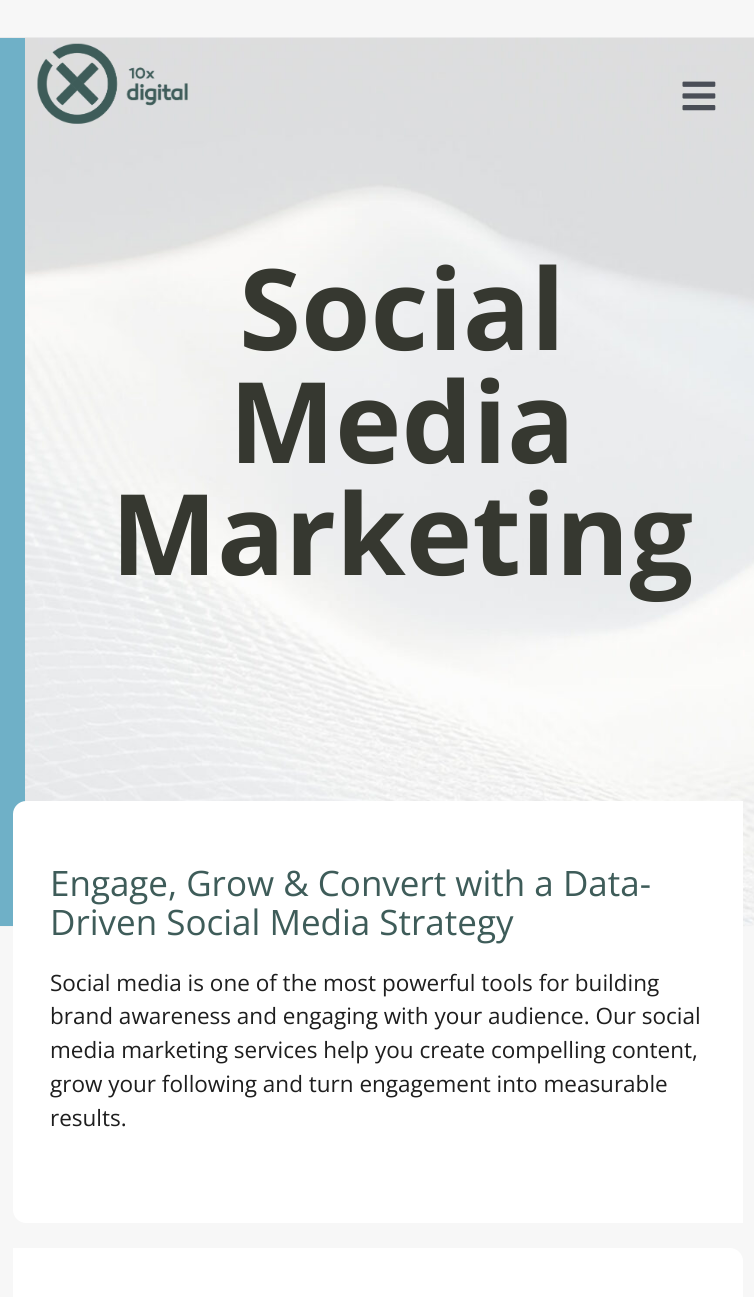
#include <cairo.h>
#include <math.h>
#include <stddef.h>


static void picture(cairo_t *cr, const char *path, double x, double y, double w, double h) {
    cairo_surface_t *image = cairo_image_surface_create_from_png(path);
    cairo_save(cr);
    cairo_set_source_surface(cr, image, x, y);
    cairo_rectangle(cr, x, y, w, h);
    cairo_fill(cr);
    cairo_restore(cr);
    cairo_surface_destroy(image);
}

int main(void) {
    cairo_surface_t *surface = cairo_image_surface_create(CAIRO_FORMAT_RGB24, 754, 1297);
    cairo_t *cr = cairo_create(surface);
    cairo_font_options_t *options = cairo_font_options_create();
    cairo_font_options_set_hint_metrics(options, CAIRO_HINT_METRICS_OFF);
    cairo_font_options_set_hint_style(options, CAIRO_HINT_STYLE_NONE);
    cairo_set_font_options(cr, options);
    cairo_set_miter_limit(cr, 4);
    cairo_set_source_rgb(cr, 0.965, 0.965, 0.965);
    cairo_paint(cr);
    picture(cr, "img3.png", 0, 37, 754, 890);
    picture(cr, "img1.png", 37, 43, 151, 81);
    picture(cr, "img2.png", 682, 81, 34, 30);
    cairo_set_source_rgb(cr, 0.435, 0.69, 0.78);
    cairo_rectangle(cr, 0, 38, 25, 888);
    cairo_fill(cr);
    cairo_select_font_face(cr, "Open Sans", CAIRO_FONT_SLANT_NORMAL, CAIRO_FONT_WEIGHT_BOLD);
    cairo_set_font_size(cr, 112.5);
    cairo_set_source_rgb(cr, 0.212, 0.22, 0.188);
    cairo_move_to(cr, 239, 350);
    cairo_show_text(cr, "Social");
    cairo_move_to(cr, 229, 463);
    cairo_show_text(cr, "Media");
    cairo_move_to(cr, 111, 575);
    cairo_show_text(cr, "Marketing");
    cairo_set_source_rgb(cr, 1, 1, 1);
    cairo_new_path(cr);
    cairo_move_to(cr, 26, 801);
    cairo_line_to(cr, 743, 801);
    cairo_line_to(cr, 743, 1223);
    cairo_line_to(cr, 26, 1223);
    cairo_curve_to(cr, 19, 1223, 13, 1217, 13, 1210);
    cairo_line_to(cr, 13, 814);
    cairo_curve_to(cr, 13, 807, 19, 801, 26, 801);
    cairo_close_path(cr);
    cairo_fill(cr);
    cairo_select_font_face(cr, "Open Sans", CAIRO_FONT_SLANT_NORMAL, CAIRO_FONT_WEIGHT_NORMAL);
    cairo_set_font_size(cr, 35);
    cairo_set_source_rgb(cr, 0.243, 0.361, 0.349);
    cairo_move_to(cr, 50, 896);
    cairo_show_text(cr, "Engage, Grow & Convert with a Data-");
    cairo_move_to(cr, 50, 935);
    cairo_show_text(cr, "Driven Social Media Strategy");
    cairo_set_font_size(cr, 22.5);
    cairo_set_source_rgb(cr, 0.118, 0.118, 0.118);
    cairo_move_to(cr, 50, 991);
    cairo_show_text(cr, "Social media is one of the most powerful tools for building");
    cairo_move_to(cr, 50, 1024);
    cairo_show_text(cr, "brand awareness and engaging with your audience. Our social");
    cairo_move_to(cr, 50, 1058);
    cairo_show_text(cr, "media marketing services help you create compelling content,");
    cairo_move_to(cr, 50, 1092);
    cairo_show_text(cr, "grow your following and turn engagement into measurable");
    cairo_move_to(cr, 50, 1126);
    cairo_show_text(cr, "results.");
    cairo_set_source_rgb(cr, 1, 1, 1);
    cairo_new_path(cr);
    cairo_move_to(cr, 13, 1248);
    cairo_line_to(cr, 730, 1248);
    cairo_curve_to(cr, 737, 1248, 743, 1254, 743, 1261);
    cairo_line_to(cr, 743, 1297);
    cairo_curve_to(cr, 743, 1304, 737, 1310, 730, 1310);
    cairo_line_to(cr, 13, 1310);
    cairo_close_path(cr);
    cairo_fill(cr);
    cairo_surface_write_to_png(surface, "page.png");
    cairo_font_options_destroy(options);
    cairo_destroy(cr);
    cairo_surface_destroy(surface);
    return 0;
}
